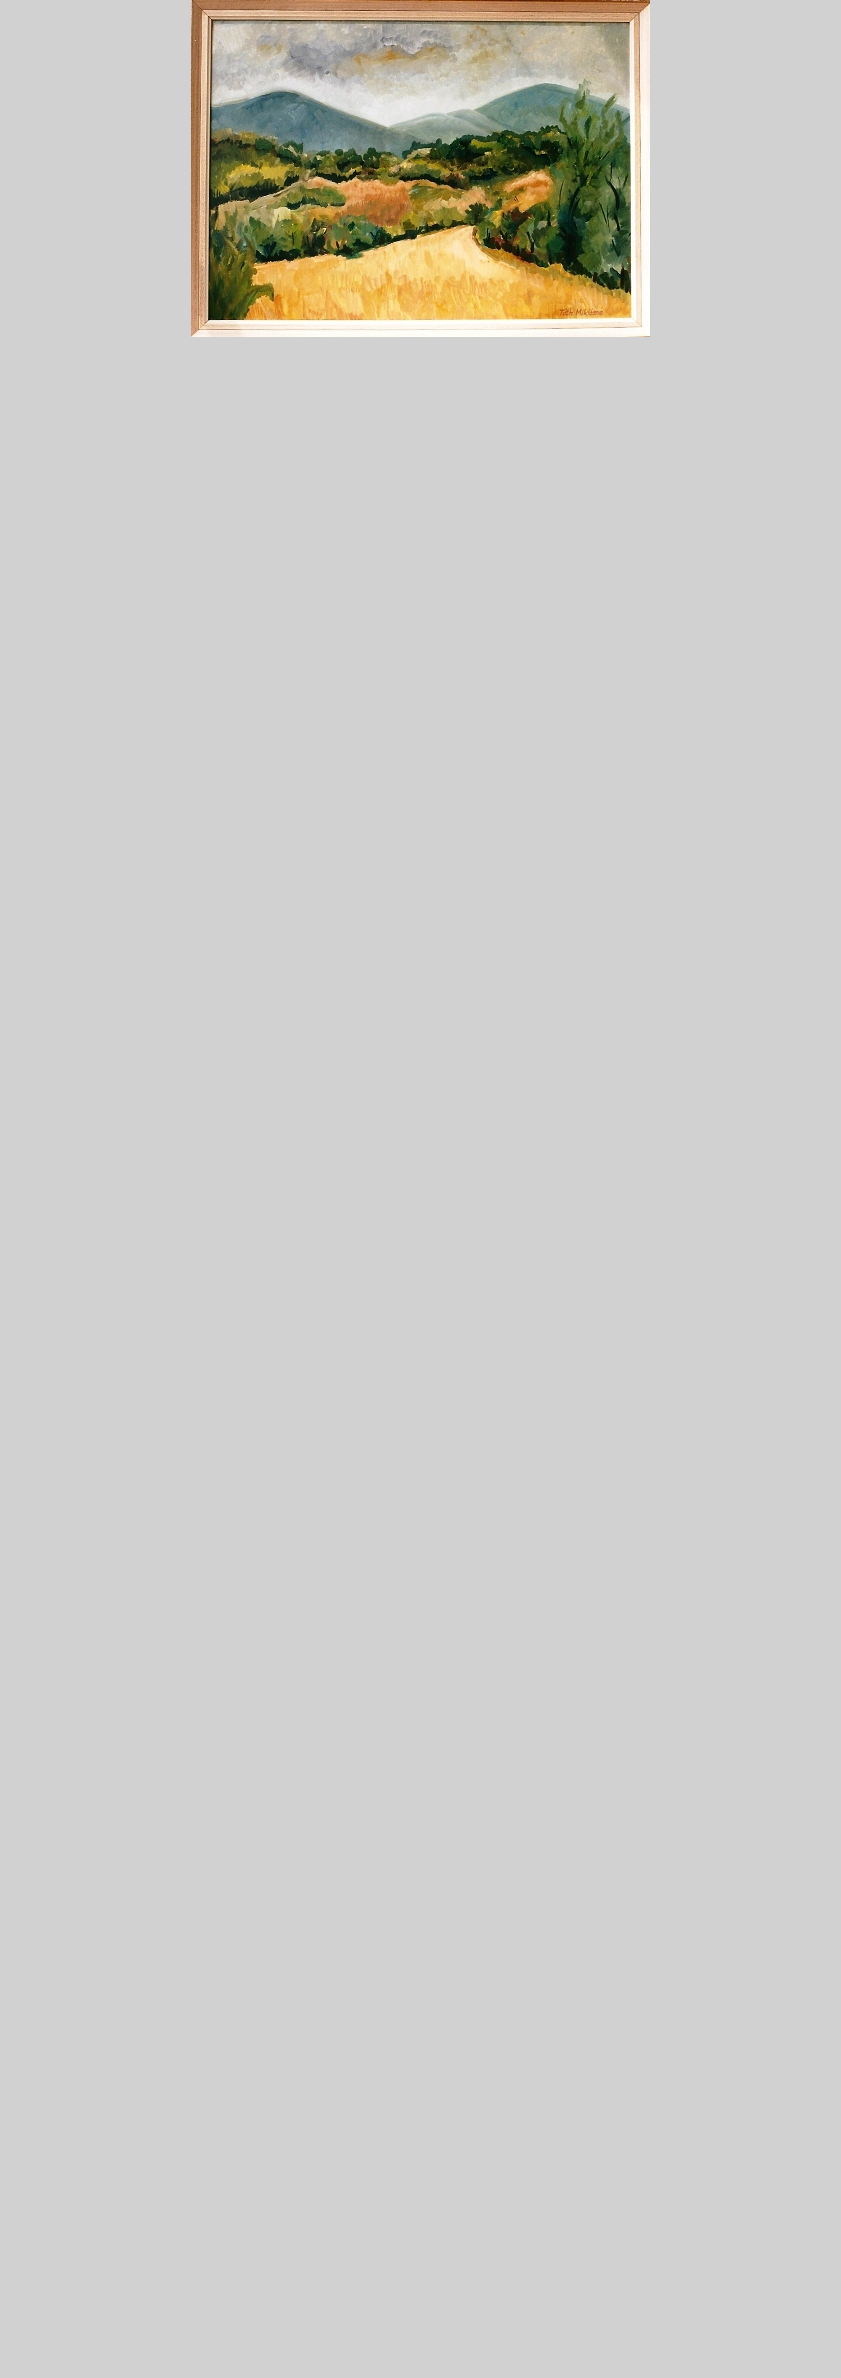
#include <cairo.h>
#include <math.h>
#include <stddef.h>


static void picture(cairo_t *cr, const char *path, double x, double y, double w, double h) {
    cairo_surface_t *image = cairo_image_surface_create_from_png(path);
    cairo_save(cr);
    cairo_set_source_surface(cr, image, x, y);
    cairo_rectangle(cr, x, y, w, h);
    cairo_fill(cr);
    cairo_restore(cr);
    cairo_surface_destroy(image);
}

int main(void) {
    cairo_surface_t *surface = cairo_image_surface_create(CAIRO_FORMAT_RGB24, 841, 2378);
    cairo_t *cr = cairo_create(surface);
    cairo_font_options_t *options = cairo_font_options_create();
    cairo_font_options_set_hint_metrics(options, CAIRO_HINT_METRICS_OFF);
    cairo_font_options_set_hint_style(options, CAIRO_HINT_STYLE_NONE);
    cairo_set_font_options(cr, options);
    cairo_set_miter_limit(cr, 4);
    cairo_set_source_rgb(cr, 0.82, 0.82, 0.82);
    cairo_paint(cr);
    picture(cr, "img1.png", 191, 0, 459, 337);
    cairo_surface_write_to_png(surface, "page.png");
    cairo_font_options_destroy(options);
    cairo_destroy(cr);
    cairo_surface_destroy(surface);
    return 0;
}
